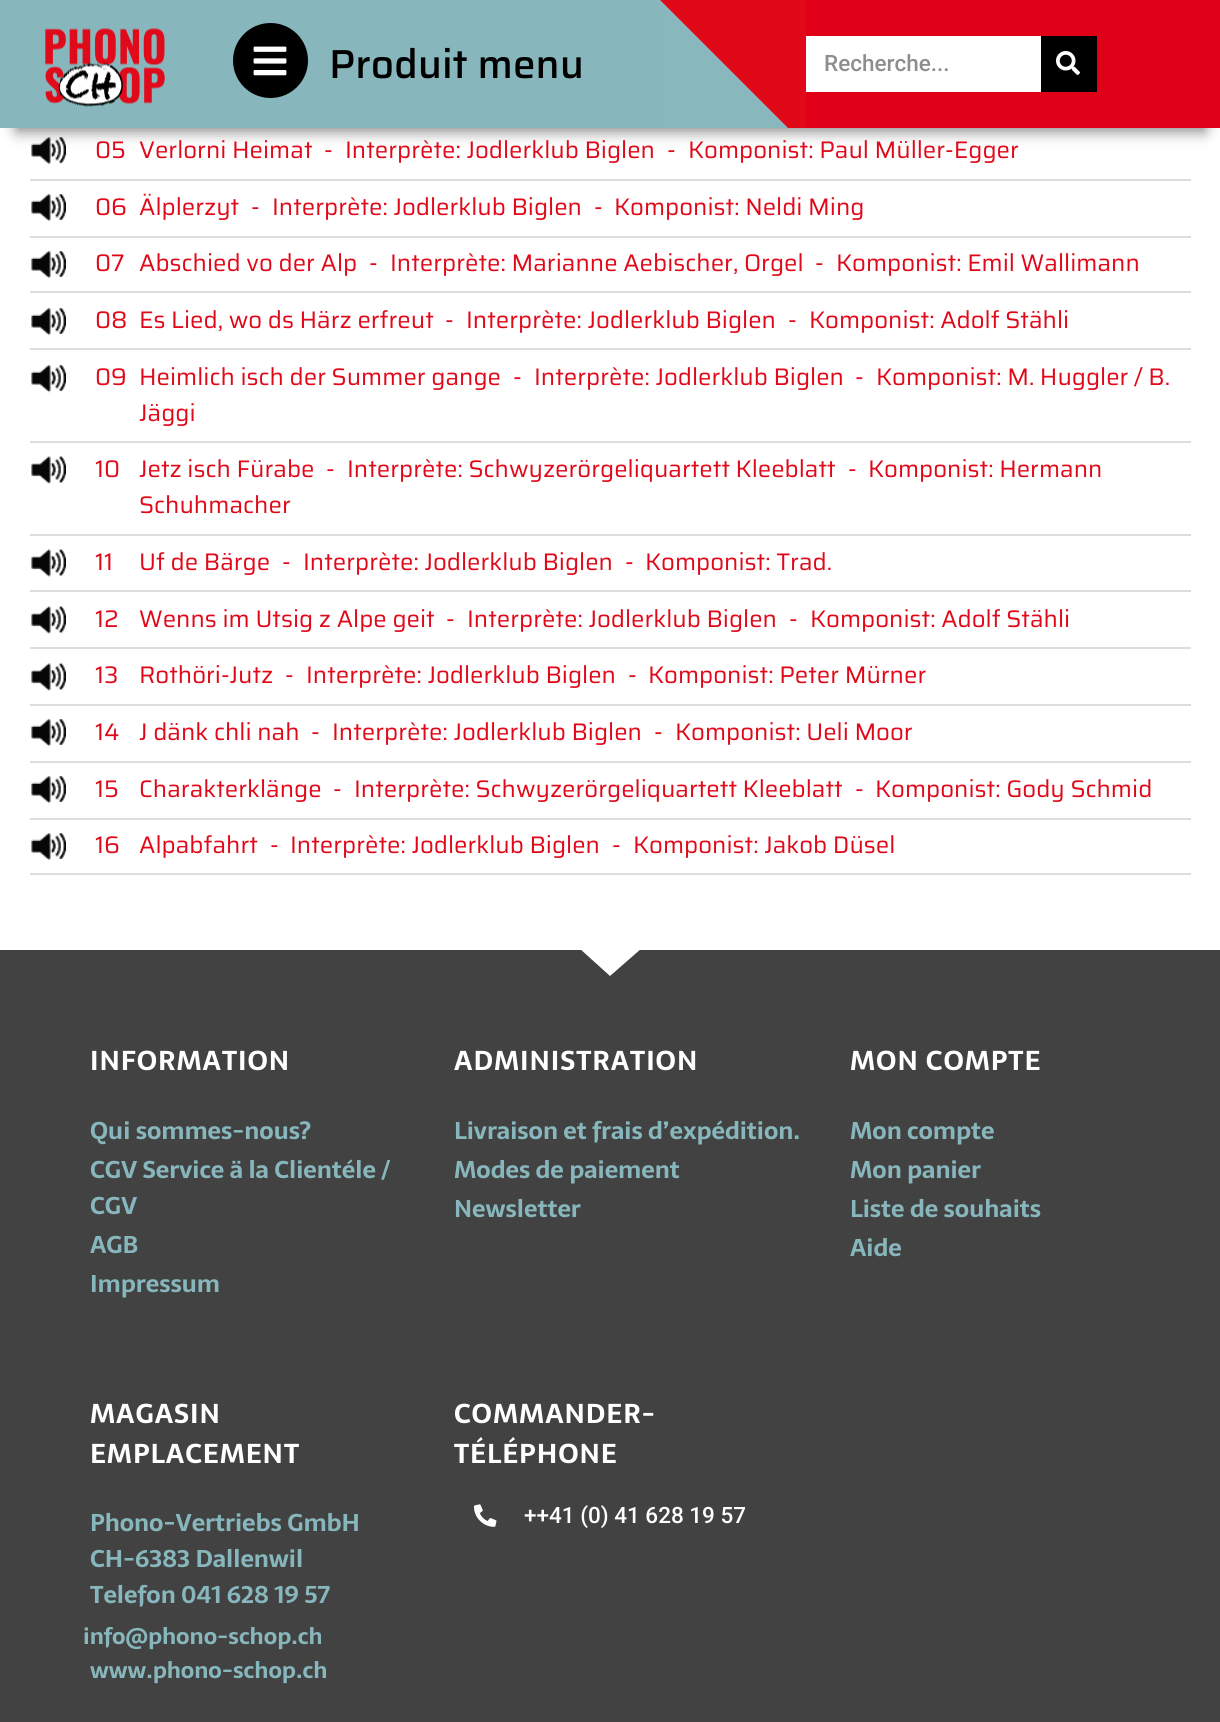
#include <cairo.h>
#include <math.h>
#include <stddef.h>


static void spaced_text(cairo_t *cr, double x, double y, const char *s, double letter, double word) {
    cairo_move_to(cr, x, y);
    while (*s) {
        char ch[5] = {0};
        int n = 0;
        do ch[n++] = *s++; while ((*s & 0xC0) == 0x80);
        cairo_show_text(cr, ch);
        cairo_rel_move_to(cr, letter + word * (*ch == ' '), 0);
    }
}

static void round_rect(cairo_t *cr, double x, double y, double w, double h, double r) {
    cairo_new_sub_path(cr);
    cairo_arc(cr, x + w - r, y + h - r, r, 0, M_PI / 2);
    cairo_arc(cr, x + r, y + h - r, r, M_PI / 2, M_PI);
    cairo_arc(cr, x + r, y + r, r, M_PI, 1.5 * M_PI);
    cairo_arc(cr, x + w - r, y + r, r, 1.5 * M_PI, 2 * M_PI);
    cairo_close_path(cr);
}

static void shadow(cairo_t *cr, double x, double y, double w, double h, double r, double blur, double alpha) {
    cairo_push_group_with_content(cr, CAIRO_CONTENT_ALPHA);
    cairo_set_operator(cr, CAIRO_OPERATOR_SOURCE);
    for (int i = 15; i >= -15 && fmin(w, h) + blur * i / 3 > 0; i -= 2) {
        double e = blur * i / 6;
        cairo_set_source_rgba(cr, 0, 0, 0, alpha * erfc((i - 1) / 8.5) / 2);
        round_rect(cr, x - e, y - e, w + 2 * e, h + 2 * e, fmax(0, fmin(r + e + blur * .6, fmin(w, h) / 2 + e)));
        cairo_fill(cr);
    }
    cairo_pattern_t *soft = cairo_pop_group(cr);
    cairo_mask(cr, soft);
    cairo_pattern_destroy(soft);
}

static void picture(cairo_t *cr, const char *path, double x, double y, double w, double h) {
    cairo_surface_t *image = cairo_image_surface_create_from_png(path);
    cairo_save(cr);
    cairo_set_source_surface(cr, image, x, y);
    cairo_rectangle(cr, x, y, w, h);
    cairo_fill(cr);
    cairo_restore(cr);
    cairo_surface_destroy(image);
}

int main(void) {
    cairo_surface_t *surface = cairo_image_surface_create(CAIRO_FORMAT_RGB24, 1220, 1722);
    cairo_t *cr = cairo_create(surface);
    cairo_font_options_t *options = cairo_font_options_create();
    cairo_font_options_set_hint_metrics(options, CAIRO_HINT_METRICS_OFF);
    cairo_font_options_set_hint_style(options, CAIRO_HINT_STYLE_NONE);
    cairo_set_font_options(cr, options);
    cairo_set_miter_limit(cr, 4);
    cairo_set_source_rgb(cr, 1, 1, 1);
    cairo_paint(cr);
    picture(cr, "img4.png", 31, 137, 35, 28);
    cairo_set_source_rgb(cr, 0, 0, 0);
    shadow(cr, 17, 36, 1188, 95, 0, 7.5, 0.5);
    cairo_set_source_rgb(cr, 0.878, 0, 0.09);
    cairo_rectangle(cr, 806, 0, 414, 128);
    cairo_fill(cr);
    cairo_set_source_rgb(cr, 0.529, 0.718, 0.737);
    cairo_rectangle(cr, 0, 0, 660, 128);
    cairo_fill(cr);
    picture(cr, "img1.png", 45, 28, 120, 79);
    cairo_set_source_rgb(cr, 0.878, 0.035, 0.098);
    cairo_rectangle(cr, 660, 0, 146, 128);
    cairo_fill(cr);
    cairo_save(cr);
    cairo_rectangle(cr, 660, 0, 146, 128);
    cairo_clip(cr);
    cairo_set_source_rgb(cr, 0.533, 0.718, 0.741);
    cairo_new_path(cr);
    cairo_move_to(cr, 660, 0);
    cairo_line_to(cr, 807, 147);
    cairo_line_to(cr, 660, 147);
    cairo_close_path(cr);
    cairo_fill(cr);
    cairo_restore(cr);
    cairo_set_source_rgb(cr, 0, 0, 0);
    cairo_arc(cr, 270.5, 60.5, 37.5, 0, 2 * M_PI);
    cairo_fill(cr);
    picture(cr, "img2.png", 253, 46, 34, 30);
    cairo_select_font_face(cr, "Saira Medium", CAIRO_FONT_SLANT_NORMAL, CAIRO_FONT_WEIGHT_NORMAL);
    cairo_set_font_size(cr, 40.5);
    cairo_move_to(cr, 329, 78);
    cairo_show_text(cr, "Produit menu");
    cairo_set_source_rgb(cr, 1, 1, 1);
    cairo_rectangle(cr, 806, 36, 235, 56);
    cairo_fill(cr);
    cairo_select_font_face(cr, "Roboto Medium", CAIRO_FONT_SLANT_NORMAL, CAIRO_FONT_WEIGHT_NORMAL);
    cairo_set_font_size(cr, 22.5);
    cairo_set_source_rgb(cr, 0.557, 0.557, 0.557);
    cairo_move_to(cr, 824, 71);
    cairo_show_text(cr, "Recherche...");
    cairo_set_source_rgb(cr, 0, 0, 0);
    cairo_rectangle(cr, 1041, 36, 56, 56);
    cairo_fill(cr);
    picture(cr, "img3.png", 1056, 51, 24, 24);
    cairo_set_source_rgb(cr, 0.867, 0.867, 0.867);
    cairo_rectangle(cr, 30, 179, 1161, 2);
    cairo_fill(cr);
    cairo_select_font_face(cr, "Saira", CAIRO_FONT_SLANT_NORMAL, CAIRO_FONT_WEIGHT_NORMAL);
    cairo_set_font_size(cr, 24);
    cairo_set_source_rgb(cr, 0.878, 0.035, 0.098);
    cairo_move_to(cr, 95, 158);
    cairo_show_text(cr, "05");
    cairo_move_to(cr, 139, 158);
    cairo_show_text(cr, "Verlorni Heimat");
    cairo_move_to(cr, 324, 158);
    cairo_show_text(cr, "-");
    cairo_move_to(cr, 345, 158);
    cairo_show_text(cr, "Interprète: Jodlerklub Biglen");
    cairo_move_to(cr, 667, 158);
    cairo_show_text(cr, "-");
    cairo_move_to(cr, 688, 158);
    cairo_show_text(cr, "Komponist: Paul Müller-Egger");
    cairo_set_source_rgb(cr, 0.867, 0.867, 0.867);
    cairo_rectangle(cr, 30, 236, 1161, 2);
    cairo_fill(cr);
    picture(cr, "img5.png", 31, 194, 35, 28);
    cairo_set_source_rgb(cr, 0.878, 0.035, 0.098);
    cairo_move_to(cr, 95, 215);
    cairo_show_text(cr, "06");
    cairo_move_to(cr, 139, 215);
    cairo_show_text(cr, "Älplerzyt");
    cairo_move_to(cr, 251, 215);
    cairo_show_text(cr, "-");
    cairo_move_to(cr, 272, 215);
    cairo_show_text(cr, "Interprète: Jodlerklub Biglen");
    cairo_move_to(cr, 594, 215);
    cairo_show_text(cr, "-");
    cairo_move_to(cr, 614, 215);
    cairo_show_text(cr, "Komponist: Neldi Ming");
    cairo_set_source_rgb(cr, 0.867, 0.867, 0.867);
    cairo_rectangle(cr, 30, 291, 1161, 2);
    cairo_fill(cr);
    picture(cr, "img5.png", 31, 251, 35, 28);
    cairo_set_source_rgb(cr, 0.878, 0.035, 0.098);
    cairo_move_to(cr, 95, 271);
    cairo_show_text(cr, "07");
    cairo_move_to(cr, 139, 271);
    cairo_show_text(cr, "Abschied vo der Alp");
    cairo_move_to(cr, 369, 271);
    cairo_show_text(cr, "-");
    cairo_move_to(cr, 390, 271);
    cairo_show_text(cr, "Interprète: Marianne Aebischer, Orgel");
    cairo_move_to(cr, 815, 271);
    cairo_show_text(cr, "-");
    cairo_move_to(cr, 836, 271);
    cairo_show_text(cr, "Komponist: Emil Wallimann");
    cairo_set_source_rgb(cr, 0.867, 0.867, 0.867);
    cairo_rectangle(cr, 30, 348, 1161, 2);
    cairo_fill(cr);
    picture(cr, "img5.png", 31, 308, 35, 28);
    cairo_set_source_rgb(cr, 0.878, 0.035, 0.098);
    cairo_move_to(cr, 95, 328);
    cairo_show_text(cr, "08");
    cairo_move_to(cr, 139, 328);
    cairo_show_text(cr, "Es Lied, wo ds Härz erfreut");
    cairo_move_to(cr, 445, 328);
    cairo_show_text(cr, "-");
    cairo_move_to(cr, 466, 328);
    cairo_show_text(cr, "Interprète: Jodlerklub Biglen");
    cairo_move_to(cr, 788, 328);
    cairo_show_text(cr, "-");
    cairo_move_to(cr, 809, 328);
    cairo_show_text(cr, "Komponist: Adolf Stähli");
    cairo_set_source_rgb(cr, 0.867, 0.867, 0.867);
    cairo_rectangle(cr, 30, 441, 1161, 2);
    cairo_fill(cr);
    picture(cr, "img5.png", 31, 365, 35, 28);
    cairo_set_source_rgb(cr, 0.878, 0.035, 0.098);
    cairo_move_to(cr, 95, 385);
    cairo_show_text(cr, "09");
    cairo_move_to(cr, 855, 385);
    cairo_show_text(cr, "-");
    cairo_move_to(cr, 876, 385);
    cairo_show_text(cr, "Komponist: M. Huggler / B.");
    cairo_move_to(cr, 139, 421);
    cairo_show_text(cr, "Jäggi");
    cairo_move_to(cr, 139, 385);
    cairo_show_text(cr, "Heimlich isch der Summer gange");
    cairo_move_to(cr, 513, 385);
    cairo_show_text(cr, "-");
    cairo_move_to(cr, 534, 385);
    cairo_show_text(cr, "Interprète: Jodlerklub Biglen");
    cairo_set_source_rgb(cr, 0.867, 0.867, 0.867);
    cairo_rectangle(cr, 30, 534, 1161, 2);
    cairo_fill(cr);
    picture(cr, "img6.png", 31, 456, 35, 28);
    cairo_set_source_rgb(cr, 0.878, 0.035, 0.098);
    cairo_move_to(cr, 95, 477);
    cairo_show_text(cr, "10");
    cairo_move_to(cr, 139, 477);
    cairo_show_text(cr, "Jetz isch Fürabe");
    cairo_move_to(cr, 848, 477);
    cairo_show_text(cr, "-");
    cairo_move_to(cr, 868, 477);
    cairo_show_text(cr, "Komponist: Hermann");
    cairo_move_to(cr, 139, 513);
    cairo_show_text(cr, "Schuhmacher");
    cairo_move_to(cr, 326, 477);
    cairo_show_text(cr, "-");
    cairo_move_to(cr, 347, 477);
    cairo_show_text(cr, "Interprète: Schwyzerörgeliquartett Kleeblatt");
    cairo_set_source_rgb(cr, 0.867, 0.867, 0.867);
    cairo_rectangle(cr, 30, 590, 1161, 2);
    cairo_fill(cr);
    picture(cr, "img7.png", 31, 549, 35, 28);
    cairo_set_source_rgb(cr, 0.878, 0.035, 0.098);
    cairo_move_to(cr, 95, 570);
    cairo_show_text(cr, "11");
    cairo_move_to(cr, 139, 570);
    cairo_show_text(cr, "Uf de Bärge");
    cairo_move_to(cr, 282, 570);
    cairo_show_text(cr, "-");
    cairo_move_to(cr, 303, 570);
    cairo_show_text(cr, "Interprète: Jodlerklub Biglen");
    cairo_move_to(cr, 625, 570);
    cairo_show_text(cr, "-");
    cairo_move_to(cr, 645, 570);
    cairo_show_text(cr, "Komponist: Trad.");
    cairo_set_source_rgb(cr, 0.867, 0.867, 0.867);
    cairo_rectangle(cr, 30, 647, 1161, 2);
    cairo_fill(cr);
    picture(cr, "img7.png", 31, 606, 35, 28);
    cairo_set_source_rgb(cr, 0.878, 0.035, 0.098);
    cairo_move_to(cr, 95, 627);
    cairo_show_text(cr, "12");
    cairo_move_to(cr, 139, 627);
    cairo_show_text(cr, "Wenns im Utsig z Alpe geit");
    cairo_move_to(cr, 446, 627);
    cairo_show_text(cr, "-");
    cairo_move_to(cr, 467, 627);
    cairo_show_text(cr, "Interprète: Jodlerklub Biglen");
    cairo_move_to(cr, 789, 627);
    cairo_show_text(cr, "-");
    cairo_move_to(cr, 810, 627);
    cairo_show_text(cr, "Komponist: Adolf Stähli");
    cairo_set_source_rgb(cr, 0.867, 0.867, 0.867);
    cairo_rectangle(cr, 30, 704, 1161, 2);
    cairo_fill(cr);
    picture(cr, "img7.png", 31, 663, 35, 28);
    cairo_set_source_rgb(cr, 0.878, 0.035, 0.098);
    cairo_move_to(cr, 95, 683);
    cairo_show_text(cr, "13");
    cairo_move_to(cr, 139, 683);
    cairo_show_text(cr, "Rothöri-Jutz");
    cairo_move_to(cr, 285, 683);
    cairo_show_text(cr, "-");
    cairo_move_to(cr, 306, 683);
    cairo_show_text(cr, "Interprète: Jodlerklub Biglen");
    cairo_move_to(cr, 628, 683);
    cairo_show_text(cr, "-");
    cairo_move_to(cr, 648, 683);
    cairo_show_text(cr, "Komponist: Peter Mürner");
    cairo_set_source_rgb(cr, 0.867, 0.867, 0.867);
    cairo_rectangle(cr, 30, 761, 1161, 2);
    cairo_fill(cr);
    picture(cr, "img5.png", 31, 719, 35, 28);
    cairo_set_source_rgb(cr, 0.878, 0.035, 0.098);
    cairo_move_to(cr, 95, 740);
    cairo_show_text(cr, "14");
    cairo_move_to(cr, 139, 740);
    cairo_show_text(cr, "J dänk chli nah");
    cairo_move_to(cr, 311, 740);
    cairo_show_text(cr, "-");
    cairo_move_to(cr, 332, 740);
    cairo_show_text(cr, "Interprète: Jodlerklub Biglen");
    cairo_move_to(cr, 654, 740);
    cairo_show_text(cr, "-");
    cairo_move_to(cr, 675, 740);
    cairo_show_text(cr, "Komponist: Ueli Moor");
    cairo_set_source_rgb(cr, 0.867, 0.867, 0.867);
    cairo_rectangle(cr, 30, 818, 1161, 2);
    cairo_fill(cr);
    picture(cr, "img5.png", 31, 776, 35, 28);
    cairo_set_source_rgb(cr, 0.878, 0.035, 0.098);
    cairo_move_to(cr, 95, 797);
    cairo_show_text(cr, "15");
    cairo_move_to(cr, 139, 797);
    cairo_show_text(cr, "Charakterklänge");
    cairo_move_to(cr, 333, 797);
    cairo_show_text(cr, "-");
    cairo_move_to(cr, 354, 797);
    cairo_show_text(cr, "Interprète: Schwyzerörgeliquartett Kleeblatt");
    cairo_move_to(cr, 855, 797);
    cairo_show_text(cr, "-");
    cairo_move_to(cr, 875, 797);
    cairo_show_text(cr, "Komponist: Gody Schmid");
    cairo_set_source_rgb(cr, 0.867, 0.867, 0.867);
    cairo_rectangle(cr, 30, 873, 1161, 2);
    cairo_fill(cr);
    picture(cr, "img8.png", 31, 833, 35, 28);
    cairo_set_source_rgb(cr, 0.878, 0.035, 0.098);
    cairo_move_to(cr, 95, 853);
    cairo_show_text(cr, "16");
    cairo_move_to(cr, 139, 853);
    cairo_show_text(cr, "Alpabfahrt");
    cairo_move_to(cr, 270, 853);
    cairo_show_text(cr, "-");
    cairo_move_to(cr, 290, 853);
    cairo_show_text(cr, "Interprète: Jodlerklub Biglen");
    cairo_move_to(cr, 612, 853);
    cairo_show_text(cr, "-");
    cairo_move_to(cr, 633, 853);
    cairo_show_text(cr, "Komponist: Jakob Düsel");
    cairo_set_source_rgb(cr, 0.259, 0.259, 0.259);
    cairo_rectangle(cr, 0, 950, 1220, 772);
    cairo_fill(cr);
    cairo_set_source_rgb(cr, 1, 1, 1);
    cairo_new_path(cr);
    cairo_move_to(cr, 610, 976);
    cairo_line_to(cr, 579, 948);
    cairo_line_to(cr, 642, 948);
    cairo_close_path(cr);
    cairo_fill(cr);
    cairo_select_font_face(cr, "Sarala", CAIRO_FONT_SLANT_NORMAL, CAIRO_FONT_WEIGHT_BOLD);
    cairo_set_font_size(cr, 27);
    spaced_text(cr, 90, 1070, "INFORMATION", 1, 0);
    cairo_set_font_size(cr, 24);
    cairo_set_source_rgb(cr, 0.529, 0.718, 0.737);
    cairo_move_to(cr, 90, 1139);
    cairo_show_text(cr, "Qui sommes-nous?");
    cairo_move_to(cr, 90, 1178);
    cairo_show_text(cr, "CGV Service ä la Clientéle /");
    cairo_move_to(cr, 90, 1214);
    cairo_show_text(cr, "CGV");
    cairo_move_to(cr, 90, 1253);
    cairo_show_text(cr, "AGB");
    cairo_move_to(cr, 90, 1292);
    cairo_show_text(cr, "Impressum");
    cairo_set_font_size(cr, 27);
    cairo_set_source_rgb(cr, 1, 1, 1);
    spaced_text(cr, 454, 1070, "ADMINISTRATION", 1, 0);
    cairo_set_font_size(cr, 24);
    cairo_set_source_rgb(cr, 0.529, 0.718, 0.737);
    cairo_move_to(cr, 454, 1139);
    cairo_show_text(cr, "Livraison et frais d’expédition.");
    cairo_move_to(cr, 454, 1178);
    cairo_show_text(cr, "Modes de paiement");
    cairo_move_to(cr, 454, 1217);
    cairo_show_text(cr, "Newsletter");
    cairo_set_font_size(cr, 27);
    cairo_set_source_rgb(cr, 1, 1, 1);
    spaced_text(cr, 850, 1070, "MON COMPTE", 1, 0);
    cairo_set_font_size(cr, 24);
    cairo_set_source_rgb(cr, 0.529, 0.718, 0.737);
    cairo_move_to(cr, 850, 1139);
    cairo_show_text(cr, "Mon compte");
    cairo_move_to(cr, 850, 1178);
    cairo_show_text(cr, "Mon panier");
    cairo_move_to(cr, 850, 1217);
    cairo_show_text(cr, "Liste de souhaits");
    cairo_move_to(cr, 850, 1256);
    cairo_show_text(cr, "Aide");
    cairo_set_font_size(cr, 27);
    cairo_set_source_rgb(cr, 1, 1, 1);
    spaced_text(cr, 90, 1423, "MAGASIN", 1, 0);
    spaced_text(cr, 90, 1463, "EMPLACEMENT", 1, 0);
    cairo_set_font_size(cr, 24);
    cairo_set_source_rgb(cr, 0.529, 0.718, 0.737);
    cairo_move_to(cr, 90, 1531);
    cairo_show_text(cr, "Phono-Vertriebs GmbH");
    cairo_move_to(cr, 90, 1567);
    cairo_show_text(cr, "CH-6383 Dallenwil");
    cairo_move_to(cr, 90, 1603);
    cairo_show_text(cr, "Telefon 041 628 19 57");
    cairo_set_font_size(cr, 22.5);
    cairo_move_to(cr, 83, 1644);
    cairo_show_text(cr, "info@phono-schop.ch");
    cairo_move_to(cr, 90, 1678);
    cairo_show_text(cr, "www.phono-schop.ch");
    cairo_set_font_size(cr, 27);
    cairo_set_source_rgb(cr, 1, 1, 1);
    spaced_text(cr, 454, 1423, "COMMANDER-", 1, 0);
    spaced_text(cr, 454, 1463, "TÉLÉPHONE", 1, 0);
    picture(cr, "img9.png", 474, 1504, 23, 23);
    cairo_select_font_face(cr, "Roboto Medium", CAIRO_FONT_SLANT_NORMAL, CAIRO_FONT_WEIGHT_NORMAL);
    cairo_set_font_size(cr, 22.5);
    cairo_move_to(cr, 524, 1523);
    cairo_show_text(cr, "++41 (0) 41 628 19 57");
    cairo_surface_write_to_png(surface, "page.png");
    cairo_font_options_destroy(options);
    cairo_destroy(cr);
    cairo_surface_destroy(surface);
    return 0;
}
